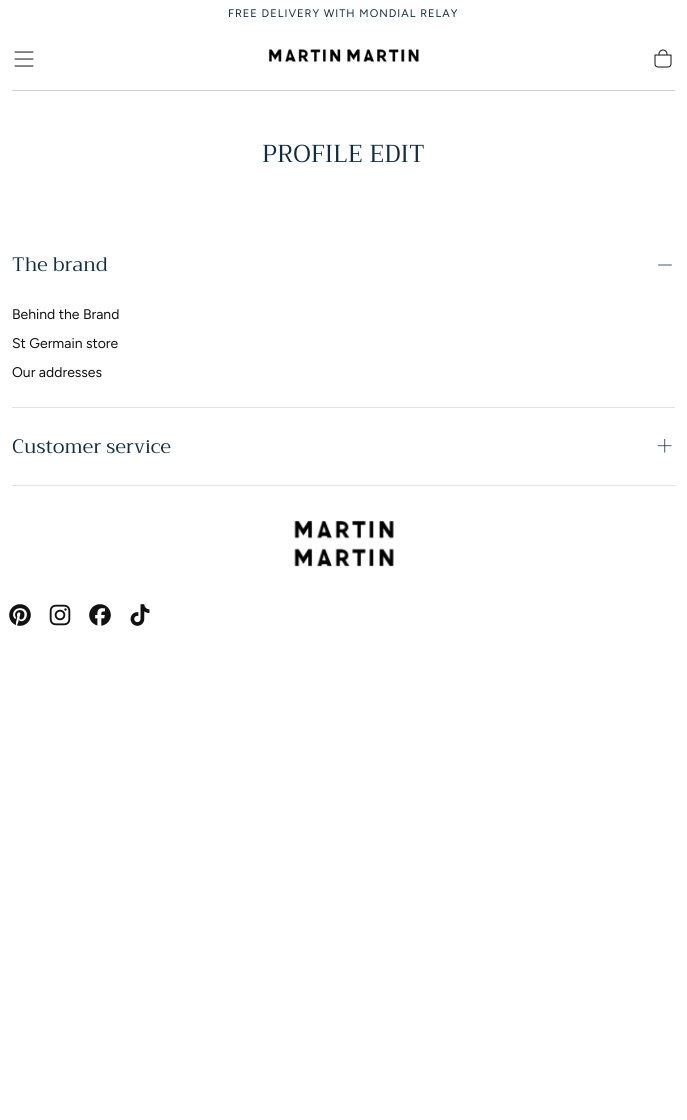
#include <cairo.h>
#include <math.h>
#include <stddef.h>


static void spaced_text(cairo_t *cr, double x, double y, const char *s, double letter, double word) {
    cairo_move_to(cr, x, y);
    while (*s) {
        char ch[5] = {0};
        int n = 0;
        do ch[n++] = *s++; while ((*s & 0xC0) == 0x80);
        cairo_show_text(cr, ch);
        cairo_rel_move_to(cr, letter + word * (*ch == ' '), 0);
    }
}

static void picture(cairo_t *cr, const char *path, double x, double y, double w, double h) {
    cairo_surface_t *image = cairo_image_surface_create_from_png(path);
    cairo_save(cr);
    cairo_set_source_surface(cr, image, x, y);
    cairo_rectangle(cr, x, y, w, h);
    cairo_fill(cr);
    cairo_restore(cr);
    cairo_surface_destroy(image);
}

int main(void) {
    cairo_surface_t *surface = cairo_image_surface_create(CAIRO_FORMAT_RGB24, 687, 1120);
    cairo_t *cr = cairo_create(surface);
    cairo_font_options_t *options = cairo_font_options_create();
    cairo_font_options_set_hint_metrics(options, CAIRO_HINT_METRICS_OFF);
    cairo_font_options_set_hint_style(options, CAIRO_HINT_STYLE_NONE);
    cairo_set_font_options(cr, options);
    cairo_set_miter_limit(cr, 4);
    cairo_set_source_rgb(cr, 1, 1, 1);
    cairo_paint(cr);
    cairo_select_font_face(cr, "Figtree", CAIRO_FONT_SLANT_NORMAL, CAIRO_FONT_WEIGHT_NORMAL);
    cairo_set_font_size(cr, 11);
    cairo_set_source_rgb(cr, 0.075, 0.176, 0.251);
    spaced_text(cr, 228, 17, "FREE DELIVERY WITH MONDIAL RELAY", 1, 0);
    picture(cr, "img1.png", 14, 51, 20, 16);
    picture(cr, "img2.png", 268, 49, 152, 14);
    picture(cr, "img3.png", 654, 49, 18, 19);
    cairo_set_source_rgb(cr, 0.812, 0.812, 0.812);
    cairo_rectangle(cr, 12, 90, 663, 1);
    cairo_fill(cr);
    cairo_select_font_face(cr, "Trirong", CAIRO_FONT_SLANT_NORMAL, CAIRO_FONT_WEIGHT_NORMAL);
    cairo_set_font_size(cr, 24.5);
    cairo_set_source_rgb(cr, 0.075, 0.176, 0.251);
    cairo_move_to(cr, 262, 162);
    cairo_show_text(cr, "PROFILE EDIT");
    cairo_set_source_rgb(cr, 0.902, 0.886, 0.882);
    cairo_rectangle(cr, 12, 407, 663, 1);
    cairo_fill(cr);
    cairo_set_font_size(cr, 19.5);
    cairo_set_source_rgb(cr, 0.075, 0.176, 0.251);
    cairo_move_to(cr, 12, 271);
    cairo_show_text(cr, "The brand");
    cairo_new_path(cr);
    cairo_move_to(cr, 658.5, 265);
    cairo_line_to(cr, 671.5, 265);
    cairo_set_line_width(cr, 0.8);
    cairo_set_line_cap(cr, CAIRO_LINE_CAP_ROUND);
    cairo_stroke(cr);
    cairo_select_font_face(cr, "Figtree", CAIRO_FONT_SLANT_NORMAL, CAIRO_FONT_WEIGHT_NORMAL);
    cairo_set_font_size(cr, 14);
    cairo_set_source_rgb(cr, 0.067, 0.067, 0.067);
    cairo_move_to(cr, 12, 319);
    cairo_show_text(cr, "Behind the Brand");
    cairo_move_to(cr, 12, 348);
    cairo_show_text(cr, "St Germain store");
    cairo_move_to(cr, 12, 377);
    cairo_show_text(cr, "Our addresses");
    cairo_set_source_rgb(cr, 0.902, 0.886, 0.882);
    cairo_rectangle(cr, 12, 485, 663, 1);
    cairo_fill(cr);
    cairo_select_font_face(cr, "Trirong", CAIRO_FONT_SLANT_NORMAL, CAIRO_FONT_WEIGHT_NORMAL);
    cairo_set_font_size(cr, 19.5);
    cairo_set_source_rgb(cr, 0.075, 0.176, 0.251);
    cairo_move_to(cr, 12, 453);
    cairo_show_text(cr, "Customer service");
    picture(cr, "img4.png", 657, 438, 15, 15);
    picture(cr, "img5.png", 294, 520, 100, 47);
    picture(cr, "img6.png", 9, 604, 22, 22);
    picture(cr, "img7.png", 49, 604, 22, 22);
    picture(cr, "img8.png", 89, 604, 22, 22);
    picture(cr, "img9.png", 130, 604, 20, 22);
    cairo_surface_write_to_png(surface, "page.png");
    cairo_font_options_destroy(options);
    cairo_destroy(cr);
    cairo_surface_destroy(surface);
    return 0;
}
